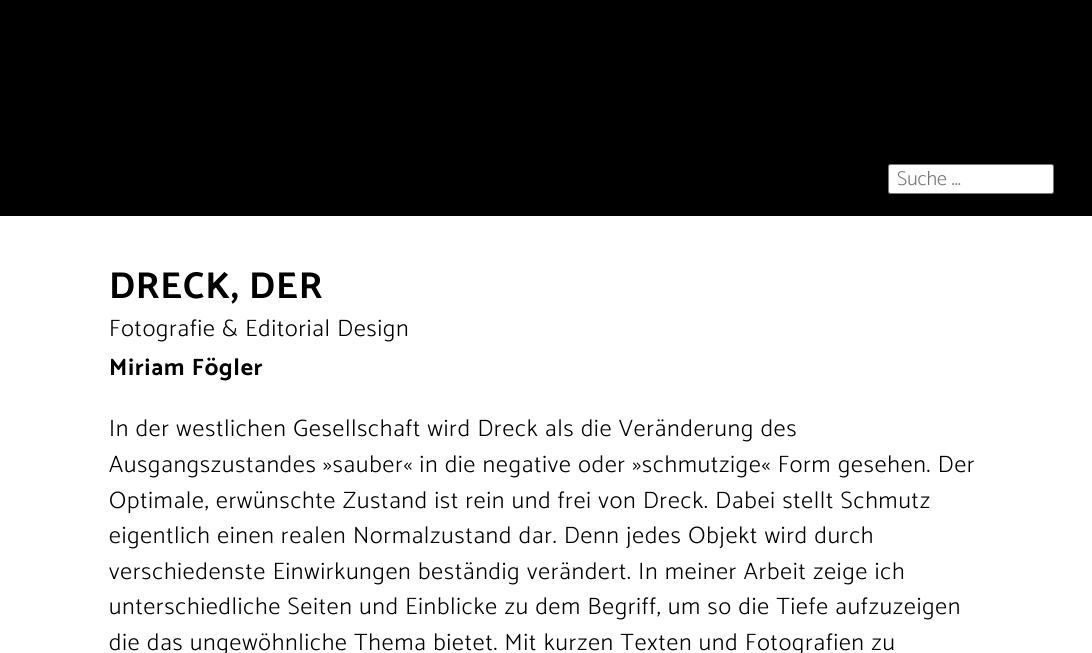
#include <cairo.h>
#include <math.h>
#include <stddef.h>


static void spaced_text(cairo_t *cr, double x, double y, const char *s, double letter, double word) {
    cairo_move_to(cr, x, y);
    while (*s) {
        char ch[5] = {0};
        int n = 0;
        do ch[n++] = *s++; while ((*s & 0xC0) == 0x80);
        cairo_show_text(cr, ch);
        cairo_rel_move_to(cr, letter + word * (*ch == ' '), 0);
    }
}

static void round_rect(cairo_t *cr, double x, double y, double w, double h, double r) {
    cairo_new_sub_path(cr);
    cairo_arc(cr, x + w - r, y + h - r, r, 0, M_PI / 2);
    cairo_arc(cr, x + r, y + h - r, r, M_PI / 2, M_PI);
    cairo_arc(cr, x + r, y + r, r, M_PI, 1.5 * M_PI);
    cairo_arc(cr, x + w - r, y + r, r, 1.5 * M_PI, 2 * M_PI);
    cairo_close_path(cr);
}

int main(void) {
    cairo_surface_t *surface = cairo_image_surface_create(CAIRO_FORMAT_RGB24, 1092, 653);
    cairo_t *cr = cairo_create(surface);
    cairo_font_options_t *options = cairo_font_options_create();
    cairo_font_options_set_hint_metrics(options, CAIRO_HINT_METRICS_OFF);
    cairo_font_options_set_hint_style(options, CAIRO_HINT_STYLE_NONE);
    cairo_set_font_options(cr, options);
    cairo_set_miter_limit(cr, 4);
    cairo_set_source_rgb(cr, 1, 1, 1);
    cairo_paint(cr);
    cairo_set_source_rgb(cr, 0, 0, 0);
    cairo_rectangle(cr, 0, 0, 1092, 216);
    cairo_fill(cr);
    cairo_set_source_rgb(cr, 1, 1, 1);
    round_rect(cr, 888.5, 164.5, 165, 29, 2);
    cairo_fill_preserve(cr);
    cairo_set_source_rgb(cr, 0.463, 0.463, 0.463);
    cairo_set_line_width(cr, 1);
    cairo_stroke(cr);
    cairo_select_font_face(cr, "Catamaran Light", CAIRO_FONT_SLANT_NORMAL, CAIRO_FONT_WEIGHT_NORMAL);
    cairo_set_font_size(cr, 20);
    cairo_set_source_rgb(cr, 0.459, 0.459, 0.459);
    cairo_move_to(cr, 897, 185);
    cairo_show_text(cr, "Suche ...");
    cairo_select_font_face(cr, "Catamaran", CAIRO_FONT_SLANT_NORMAL, CAIRO_FONT_WEIGHT_BOLD);
    cairo_set_font_size(cr, 37.5);
    cairo_set_source_rgb(cr, 0, 0, 0);
    spaced_text(cr, 109, 298, "DRECK, DER", 0.95, 0);
    cairo_select_font_face(cr, "Catamaran Light", CAIRO_FONT_SLANT_NORMAL, CAIRO_FONT_WEIGHT_NORMAL);
    cairo_set_font_size(cr, 23.75);
    spaced_text(cr, 109, 336, "Fotografie & Editorial Design", 0.95, 0);
    cairo_select_font_face(cr, "Catamaran", CAIRO_FONT_SLANT_NORMAL, CAIRO_FONT_WEIGHT_BOLD);
    spaced_text(cr, 109, 375, "Miriam Fögler", 0.95, 0);
    cairo_select_font_face(cr, "Catamaran Light", CAIRO_FONT_SLANT_NORMAL, CAIRO_FONT_WEIGHT_NORMAL);
    spaced_text(cr, 109, 436, "In der westlichen Gesellschaft wird Dreck als die Veränderung des", 0.95, 0);
    spaced_text(cr, 109, 472, "Ausgangszustandes »sauber« in die negative oder »schmutzige« Form gesehen. Der", 0.95, 0);
    spaced_text(cr, 109, 508, "Optimale, erwünschte Zustand ist rein und frei von Dreck. Dabei stellt Schmutz", 0.95, 0);
    spaced_text(cr, 109, 543, "eigentlich einen realen Normalzustand dar. Denn jedes Objekt wird durch", 0.95, 0);
    spaced_text(cr, 109, 579, "verschiedenste Einwirkungen beständig verändert. In meiner Arbeit zeige ich", 0.95, 0);
    spaced_text(cr, 109, 614, "unterschiedliche Seiten und Einblicke zu dem Begriff, um so die Tiefe aufzuzeigen", 0.95, 0);
    spaced_text(cr, 109, 650, "die das ungewöhnliche Thema bietet. Mit kurzen Texten und Fotografien zu", 0.95, 0);
    cairo_surface_write_to_png(surface, "page.png");
    cairo_font_options_destroy(options);
    cairo_destroy(cr);
    cairo_surface_destroy(surface);
    return 0;
}
